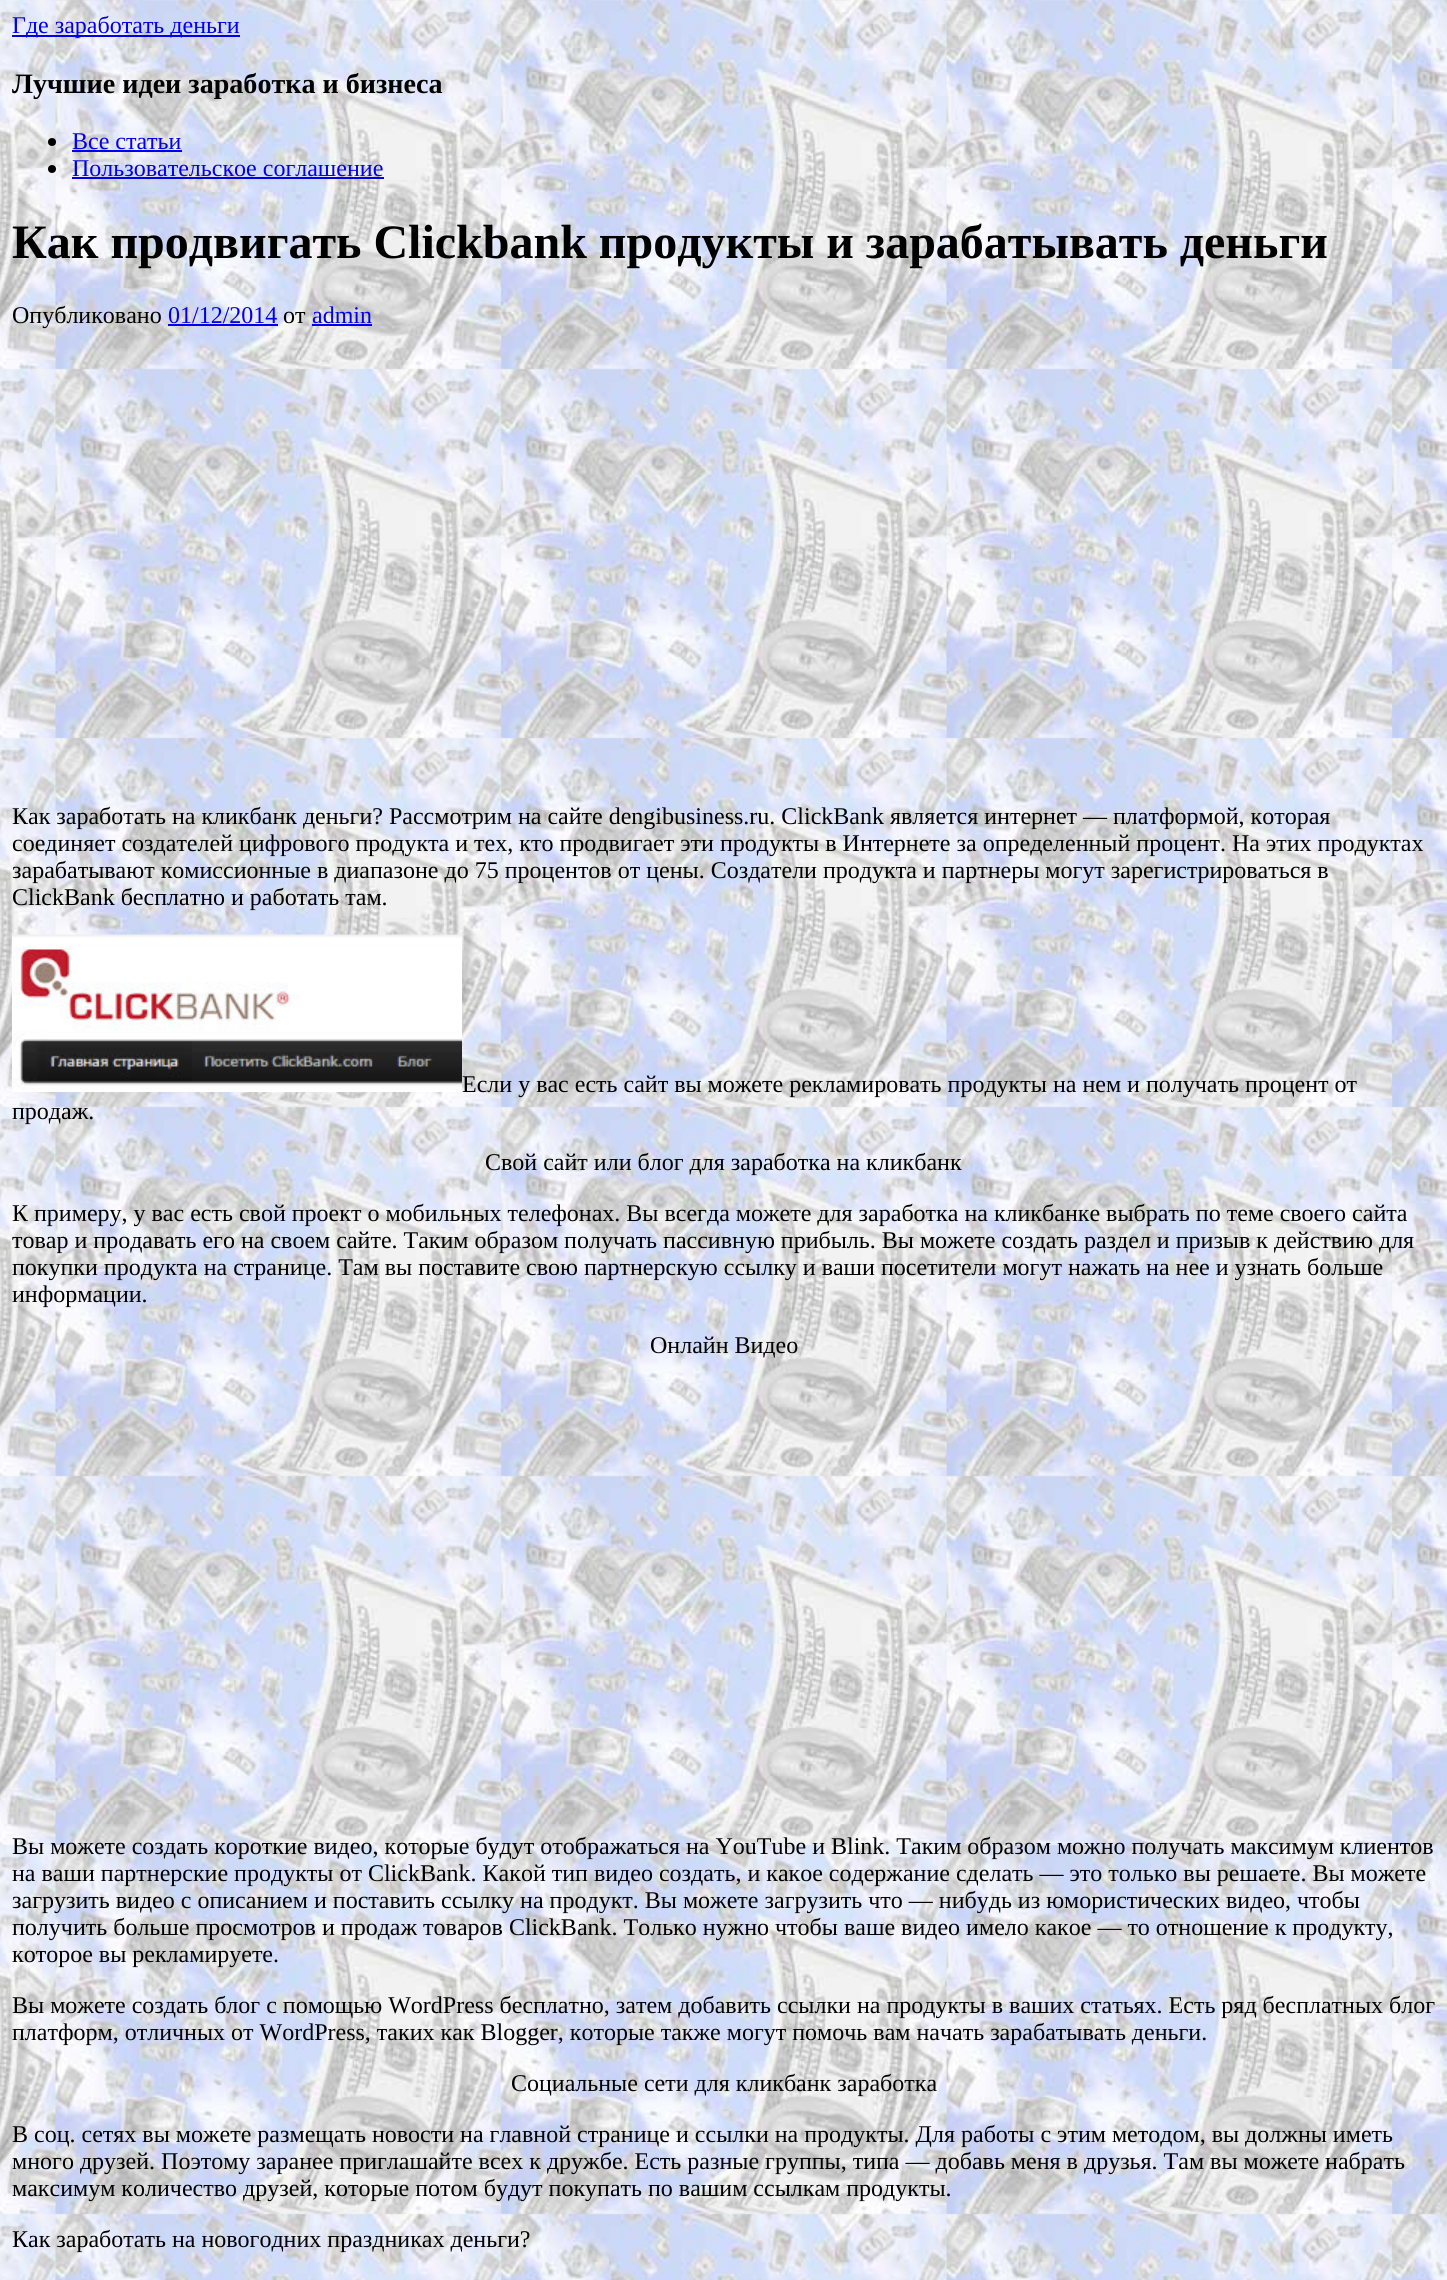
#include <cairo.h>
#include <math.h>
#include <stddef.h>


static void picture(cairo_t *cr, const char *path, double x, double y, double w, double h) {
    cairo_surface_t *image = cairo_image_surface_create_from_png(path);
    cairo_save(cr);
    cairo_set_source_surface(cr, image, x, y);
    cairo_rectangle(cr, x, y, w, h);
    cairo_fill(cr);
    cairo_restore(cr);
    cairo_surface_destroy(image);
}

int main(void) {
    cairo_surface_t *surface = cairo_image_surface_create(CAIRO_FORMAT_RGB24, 1447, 2280);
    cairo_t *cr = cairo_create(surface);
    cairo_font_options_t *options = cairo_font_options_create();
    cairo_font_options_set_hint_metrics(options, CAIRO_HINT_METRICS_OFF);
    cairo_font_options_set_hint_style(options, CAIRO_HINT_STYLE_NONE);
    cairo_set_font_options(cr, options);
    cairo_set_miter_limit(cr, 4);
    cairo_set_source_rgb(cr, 1, 1, 1);
    cairo_paint(cr);
    picture(cr, "img1.png", 0, 0, 1447, 2280);
    cairo_set_source_rgb(cr, 0, 0, 0.933);
    cairo_rectangle(cr, 12, 35, 228, 2);
    cairo_fill(cr);
    cairo_select_font_face(cr, "Liberation Serif", CAIRO_FONT_SLANT_NORMAL, CAIRO_FONT_WEIGHT_NORMAL);
    cairo_set_font_size(cr, 24);
    cairo_move_to(cr, 12, 33);
    cairo_show_text(cr, "Где заработать деньги");
    cairo_select_font_face(cr, "Liberation Serif", CAIRO_FONT_SLANT_NORMAL, CAIRO_FONT_WEIGHT_BOLD);
    cairo_set_font_size(cr, 28.1);
    cairo_set_source_rgb(cr, 0, 0, 0);
    cairo_move_to(cr, 12, 93);
    cairo_show_text(cr, "Лучшие идеи заработка и бизнеса");
    cairo_new_path(cr);
    cairo_arc(cr, 52, 142, 4, 0, 2 * M_PI);
    cairo_fill(cr);
    cairo_select_font_face(cr, "Liberation Serif", CAIRO_FONT_SLANT_NORMAL, CAIRO_FONT_WEIGHT_NORMAL);
    cairo_set_font_size(cr, 24);
    cairo_set_source_rgb(cr, 0, 0, 0.933);
    cairo_move_to(cr, 72, 149);
    cairo_show_text(cr, "Все статьи");
    cairo_rectangle(cr, 72, 150, 110, 2);
    cairo_fill(cr);
    cairo_set_source_rgb(cr, 0, 0, 0);
    cairo_arc(cr, 52, 169, 4, 0, 2 * M_PI);
    cairo_fill(cr);
    cairo_set_source_rgb(cr, 0, 0, 0.933);
    cairo_move_to(cr, 72, 176);
    cairo_show_text(cr, "Пользовательское соглашение");
    cairo_rectangle(cr, 72, 177, 312, 2);
    cairo_fill(cr);
    cairo_select_font_face(cr, "Liberation Serif", CAIRO_FONT_SLANT_NORMAL, CAIRO_FONT_WEIGHT_BOLD);
    cairo_set_font_size(cr, 48);
    cairo_set_source_rgb(cr, 0, 0, 0);
    cairo_move_to(cr, 12, 258);
    cairo_show_text(cr, "Как продвигать Clickbank продукты и зарабатывать деньги");
    cairo_select_font_face(cr, "Liberation Serif", CAIRO_FONT_SLANT_NORMAL, CAIRO_FONT_WEIGHT_NORMAL);
    cairo_set_font_size(cr, 24);
    cairo_move_to(cr, 12, 323);
    cairo_show_text(cr, "Опубликовано");
    cairo_set_source_rgb(cr, 0, 0, 0.933);
    cairo_move_to(cr, 168, 323);
    cairo_show_text(cr, "01/12/2014");
    cairo_rectangle(cr, 168, 324, 110, 2);
    cairo_fill(cr);
    cairo_set_source_rgb(cr, 0, 0, 0);
    cairo_move_to(cr, 283, 323);
    cairo_show_text(cr, "от");
    cairo_set_source_rgb(cr, 0, 0, 0.933);
    cairo_move_to(cr, 312, 323);
    cairo_show_text(cr, "admin");
    cairo_rectangle(cr, 312, 324, 60, 2);
    cairo_fill(cr);
    cairo_set_source_rgb(cr, 0, 0, 0);
    cairo_move_to(cr, 12, 824);
    cairo_show_text(cr, "Как заработать на кликбанк деньги? Рассмотрим на сайте dengibusiness.ru. ClickBank является интернет — платформой, которая");
    cairo_move_to(cr, 12, 851);
    cairo_show_text(cr, "соединяет создателей цифрового продукта и тех, кто продвигает эти продукты в Интернете за определенный процент. На этих продуктах");
    cairo_move_to(cr, 12, 878);
    cairo_show_text(cr, "зарабатывают комиссионные в диапазоне до 75 процентов от цены. Создатели продукта и партнеры могут зарегистрироваться в");
    cairo_move_to(cr, 12, 905);
    cairo_show_text(cr, "ClickBank бесплатно и работать там.");
    picture(cr, "img2.png", 12, 934, 450, 158);
    cairo_move_to(cr, 462, 1092);
    cairo_show_text(cr, "Если у вас есть сайт вы можете рекламировать продукты на нем и получать процент от");
    cairo_move_to(cr, 12, 1119);
    cairo_show_text(cr, "продаж.");
    cairo_move_to(cr, 485, 1170);
    cairo_show_text(cr, "Свой сайт или блог для заработка на кликбанк");
    cairo_move_to(cr, 12, 1221);
    cairo_show_text(cr, "К примеру, у вас есть свой проект о мобильных телефонах. Вы всегда можете для заработка на кликбанке выбрать по теме своего сайта");
    cairo_move_to(cr, 12, 1248);
    cairo_show_text(cr, "товар и продавать его на своем сайте. Таким образом получать пассивную прибыль. Вы можете создать раздел и призыв к действию для");
    cairo_move_to(cr, 12, 1275);
    cairo_show_text(cr, "покупки продукта на странице. Там вы поставите свою партнерскую ссылку и ваши посетители могут нажать на нее и узнать больше");
    cairo_move_to(cr, 12, 1302);
    cairo_show_text(cr, "информации.");
    cairo_move_to(cr, 650, 1353);
    cairo_show_text(cr, "Онлайн Видео");
    cairo_move_to(cr, 12, 1854);
    cairo_show_text(cr, "Вы можете создать короткие видео, которые будут отображаться на YouTube и Blink. Таким образом можно получать максимум клиентов");
    cairo_move_to(cr, 12, 1881);
    cairo_show_text(cr, "на ваши партнерские продукты от ClickBank. Какой тип видео создать, и какое содержание сделать — это только вы решаете. Вы можете");
    cairo_move_to(cr, 12, 1908);
    cairo_show_text(cr, "загрузить видео с описанием и поставить ссылку на продукт. Вы можете загрузить что — нибудь из юмористических видео, чтобы");
    cairo_move_to(cr, 12, 1935);
    cairo_show_text(cr, "получить больше просмотров и продаж товаров ClickBank. Только нужно чтобы ваше видео имело какое — то отношение к продукту,");
    cairo_move_to(cr, 12, 1962);
    cairo_show_text(cr, "которое вы рекламируете.");
    cairo_move_to(cr, 12, 2013);
    cairo_show_text(cr, "Вы можете создать блог с помощью WordPress бесплатно, затем добавить ссылки на продукты в ваших статьях. Есть ряд бесплатных блог");
    cairo_move_to(cr, 12, 2040);
    cairo_show_text(cr, "платформ, отличных от WordPress, таких как Blogger, которые также могут помочь вам начать зарабатывать деньги.");
    cairo_move_to(cr, 511, 2091);
    cairo_show_text(cr, "Социальные сети для кликбанк заработка");
    cairo_move_to(cr, 12, 2142);
    cairo_show_text(cr, "В соц. сетях вы можете размещать новости на главной странице и ссылки на продукты. Для работы с этим методом, вы должны иметь");
    cairo_move_to(cr, 12, 2169);
    cairo_show_text(cr, "много друзей. Поэтому заранее приглашайте всех к дружбе. Есть разные группы, типа — добавь меня в друзья. Там вы можете набрать");
    cairo_move_to(cr, 12, 2196);
    cairo_show_text(cr, "максимум количество друзей, которые потом будут покупать по вашим ссылкам продукты.");
    cairo_move_to(cr, 12, 2247);
    cairo_show_text(cr, "Как заработать на новогодних праздниках деньги?");
    cairo_surface_write_to_png(surface, "page.png");
    cairo_font_options_destroy(options);
    cairo_destroy(cr);
    cairo_surface_destroy(surface);
    return 0;
}
